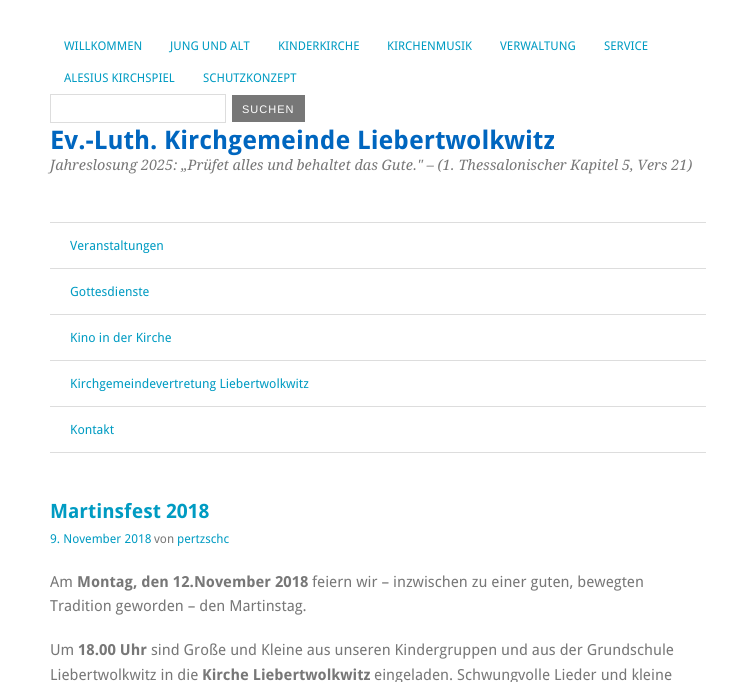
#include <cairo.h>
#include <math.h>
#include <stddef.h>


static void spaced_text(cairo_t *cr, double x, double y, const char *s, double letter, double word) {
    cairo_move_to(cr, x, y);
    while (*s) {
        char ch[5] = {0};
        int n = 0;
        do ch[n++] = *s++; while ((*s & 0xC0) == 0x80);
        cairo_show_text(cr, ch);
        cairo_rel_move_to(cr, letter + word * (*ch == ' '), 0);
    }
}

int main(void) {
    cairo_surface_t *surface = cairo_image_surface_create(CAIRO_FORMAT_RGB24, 756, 682);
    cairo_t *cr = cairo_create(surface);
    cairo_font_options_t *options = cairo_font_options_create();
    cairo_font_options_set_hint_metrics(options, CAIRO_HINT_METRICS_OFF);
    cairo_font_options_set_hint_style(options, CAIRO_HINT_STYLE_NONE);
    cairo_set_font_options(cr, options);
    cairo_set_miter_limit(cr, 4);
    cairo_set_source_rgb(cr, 1, 1, 1);
    cairo_paint(cr);
    cairo_select_font_face(cr, "Droid Sans", CAIRO_FONT_SLANT_NORMAL, CAIRO_FONT_WEIGHT_NORMAL);
    cairo_set_font_size(cr, 12);
    cairo_set_source_rgb(cr, 0, 0.608, 0.761);
    cairo_move_to(cr, 64, 50);
    cairo_show_text(cr, "WILLKOMMEN");
    cairo_move_to(cr, 170, 50);
    cairo_show_text(cr, "JUNG UND ALT");
    cairo_move_to(cr, 278, 50);
    cairo_show_text(cr, "KINDERKIRCHE");
    cairo_move_to(cr, 387, 50);
    cairo_show_text(cr, "KIRCHENMUSIK");
    cairo_move_to(cr, 500, 50);
    cairo_show_text(cr, "VERWALTUNG");
    cairo_move_to(cr, 604, 50);
    cairo_show_text(cr, "SERVICE");
    cairo_move_to(cr, 64, 82);
    cairo_show_text(cr, "ALESIUS KIRCHSPIEL");
    cairo_move_to(cr, 203, 82);
    cairo_show_text(cr, "SCHUTZKONZEPT");
    cairo_rectangle(cr, 50.5, 94.5, 175, 28);
    cairo_set_source_rgb(cr, 0.867, 0.867, 0.867);
    cairo_set_line_width(cr, 1);
    cairo_stroke(cr);
    cairo_set_source_rgb(cr, 0.467, 0.467, 0.467);
    cairo_rectangle(cr, 232, 95, 73, 27);
    cairo_fill(cr);
    cairo_select_font_face(cr, "Liberation Sans", CAIRO_FONT_SLANT_NORMAL, CAIRO_FONT_WEIGHT_NORMAL);
    cairo_set_font_size(cr, 11);
    cairo_set_source_rgb(cr, 1, 1, 1);
    spaced_text(cr, 242, 113, "SUCHEN", 1, 0);
    cairo_select_font_face(cr, "Droid Sans", CAIRO_FONT_SLANT_NORMAL, CAIRO_FONT_WEIGHT_BOLD);
    cairo_set_font_size(cr, 25.6);
    cairo_set_source_rgb(cr, 0, 0.4, 0.749);
    cairo_move_to(cr, 50, 149);
    cairo_show_text(cr, "Ev.-Luth. Kirchgemeinde Liebertwolkwitz");
    cairo_select_font_face(cr, "Droid Serif", CAIRO_FONT_SLANT_ITALIC, CAIRO_FONT_WEIGHT_NORMAL);
    cairo_set_font_size(cr, 14.4);
    cairo_set_source_rgb(cr, 0.467, 0.467, 0.467);
    cairo_move_to(cr, 50, 170);
    cairo_show_text(cr, "Jahreslosung 2025: „Prüfet alles und behaltet das Gute.\" – (1. Thessalonischer Kapitel 5, Vers 21)");
    cairo_set_source_rgb(cr, 0.867, 0.867, 0.867);
    cairo_rectangle(cr, 50, 222, 656, 1);
    cairo_fill(cr);
    cairo_rectangle(cr, 50, 268, 656, 1);
    cairo_fill(cr);
    cairo_select_font_face(cr, "Droid Sans", CAIRO_FONT_SLANT_NORMAL, CAIRO_FONT_WEIGHT_NORMAL);
    cairo_set_font_size(cr, 12.75);
    cairo_set_source_rgb(cr, 0, 0.608, 0.761);
    cairo_move_to(cr, 70, 250);
    cairo_show_text(cr, "Veranstaltungen");
    cairo_set_source_rgb(cr, 0.867, 0.867, 0.867);
    cairo_rectangle(cr, 50, 314, 656, 1);
    cairo_fill(cr);
    cairo_set_source_rgb(cr, 0, 0.608, 0.761);
    cairo_move_to(cr, 70, 296);
    cairo_show_text(cr, "Gottesdienste");
    cairo_set_source_rgb(cr, 0.867, 0.867, 0.867);
    cairo_rectangle(cr, 50, 360, 656, 1);
    cairo_fill(cr);
    cairo_set_source_rgb(cr, 0, 0.608, 0.761);
    cairo_move_to(cr, 70, 342);
    cairo_show_text(cr, "Kino in der Kirche");
    cairo_set_source_rgb(cr, 0.867, 0.867, 0.867);
    cairo_rectangle(cr, 50, 406, 656, 1);
    cairo_fill(cr);
    cairo_set_source_rgb(cr, 0, 0.608, 0.761);
    cairo_move_to(cr, 70, 388);
    cairo_show_text(cr, "Kirchgemeindevertretung Liebertwolkwitz");
    cairo_move_to(cr, 70, 434);
    cairo_show_text(cr, "Kontakt");
    cairo_set_source_rgb(cr, 0.867, 0.867, 0.867);
    cairo_rectangle(cr, 50, 452, 656, 1);
    cairo_fill(cr);
    cairo_select_font_face(cr, "Droid Sans", CAIRO_FONT_SLANT_NORMAL, CAIRO_FONT_WEIGHT_BOLD);
    cairo_set_font_size(cr, 19.75);
    cairo_set_source_rgb(cr, 0, 0.608, 0.761);
    cairo_move_to(cr, 50, 518);
    cairo_show_text(cr, "Martinsfest 2018");
    cairo_select_font_face(cr, "Droid Sans", CAIRO_FONT_SLANT_NORMAL, CAIRO_FONT_WEIGHT_NORMAL);
    cairo_set_font_size(cr, 12.25);
    cairo_move_to(cr, 50, 543);
    cairo_show_text(cr, "9. November 2018");
    cairo_set_source_rgb(cr, 0.467, 0.467, 0.467);
    cairo_move_to(cr, 154, 543);
    cairo_show_text(cr, "von");
    cairo_set_source_rgb(cr, 0, 0.608, 0.761);
    cairo_move_to(cr, 177, 543);
    cairo_show_text(cr, "pertzschc");
    cairo_set_font_size(cr, 15.2);
    cairo_set_source_rgb(cr, 0.467, 0.467, 0.467);
    cairo_move_to(cr, 50, 587);
    cairo_show_text(cr, "Am");
    cairo_select_font_face(cr, "Droid Sans", CAIRO_FONT_SLANT_NORMAL, CAIRO_FONT_WEIGHT_BOLD);
    cairo_move_to(cr, 77, 587);
    cairo_show_text(cr, "Montag, den 12.November 2018");
    cairo_select_font_face(cr, "Droid Sans", CAIRO_FONT_SLANT_NORMAL, CAIRO_FONT_WEIGHT_NORMAL);
    cairo_move_to(cr, 312, 587);
    cairo_show_text(cr, "feiern wir – inzwischen zu einer guten, bewegten");
    cairo_move_to(cr, 50, 611);
    cairo_show_text(cr, "Tradition geworden – den Martinstag.");
    cairo_move_to(cr, 50, 655);
    cairo_show_text(cr, "Um");
    cairo_select_font_face(cr, "Droid Sans", CAIRO_FONT_SLANT_NORMAL, CAIRO_FONT_WEIGHT_BOLD);
    cairo_move_to(cr, 78, 655);
    cairo_show_text(cr, "18.00 Uhr");
    cairo_select_font_face(cr, "Droid Sans", CAIRO_FONT_SLANT_NORMAL, CAIRO_FONT_WEIGHT_NORMAL);
    cairo_move_to(cr, 151, 655);
    cairo_show_text(cr, "sind Große und Kleine aus unseren Kindergruppen und aus der Grundschule");
    cairo_move_to(cr, 50, 680);
    cairo_show_text(cr, "Liebertwolkwitz in die");
    cairo_select_font_face(cr, "Droid Sans", CAIRO_FONT_SLANT_NORMAL, CAIRO_FONT_WEIGHT_BOLD);
    cairo_move_to(cr, 202, 680);
    cairo_show_text(cr, "Kirche Liebertwolkwitz");
    cairo_select_font_face(cr, "Droid Sans", CAIRO_FONT_SLANT_NORMAL, CAIRO_FONT_WEIGHT_NORMAL);
    cairo_move_to(cr, 374, 680);
    cairo_show_text(cr, "eingeladen. Schwungvolle Lieder und kleine");
    cairo_surface_write_to_png(surface, "page.png");
    cairo_font_options_destroy(options);
    cairo_destroy(cr);
    cairo_surface_destroy(surface);
    return 0;
}
